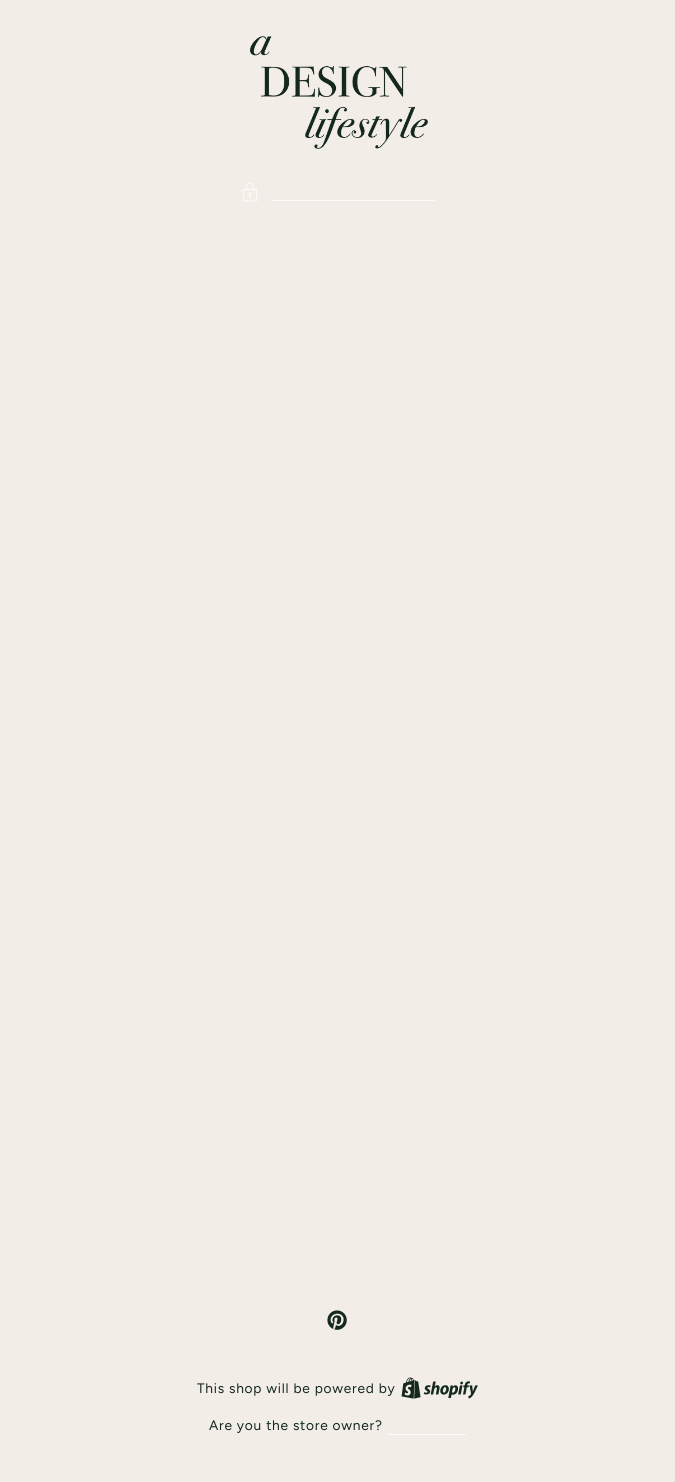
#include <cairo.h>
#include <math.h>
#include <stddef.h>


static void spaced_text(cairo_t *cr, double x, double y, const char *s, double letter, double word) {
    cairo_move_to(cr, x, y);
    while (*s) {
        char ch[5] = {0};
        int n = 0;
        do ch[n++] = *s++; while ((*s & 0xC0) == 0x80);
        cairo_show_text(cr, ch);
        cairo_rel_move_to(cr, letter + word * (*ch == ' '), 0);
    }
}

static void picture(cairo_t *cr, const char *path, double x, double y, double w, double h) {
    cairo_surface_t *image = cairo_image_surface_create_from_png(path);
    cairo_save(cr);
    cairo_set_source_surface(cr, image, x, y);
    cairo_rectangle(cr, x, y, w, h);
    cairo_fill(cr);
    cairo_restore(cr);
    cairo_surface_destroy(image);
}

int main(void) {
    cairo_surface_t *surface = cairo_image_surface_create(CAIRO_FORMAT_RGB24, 675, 1482);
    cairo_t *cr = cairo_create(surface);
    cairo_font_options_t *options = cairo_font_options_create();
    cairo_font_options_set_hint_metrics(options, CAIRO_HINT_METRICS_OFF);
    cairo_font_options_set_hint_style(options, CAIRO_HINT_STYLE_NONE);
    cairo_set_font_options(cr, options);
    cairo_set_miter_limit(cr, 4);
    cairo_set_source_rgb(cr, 0.949, 0.929, 0.906);
    cairo_paint(cr);
    picture(cr, "img1.png", 250, 36, 178, 113);
    picture(cr, "img2.png", 243, 182, 14, 20);
    cairo_set_source_rgb(cr, 0.992, 0.988, 0.984);
    cairo_rectangle(cr, 271, 200, 164, 1);
    cairo_fill(cr);
    picture(cr, "img3.png", 327, 1310, 20, 20);
    cairo_select_font_face(cr, "Figtree", CAIRO_FONT_SLANT_NORMAL, CAIRO_FONT_WEIGHT_NORMAL);
    cairo_set_font_size(cr, 13.75);
    cairo_set_source_rgb(cr, 0.078, 0.157, 0.114);
    spaced_text(cr, 197, 1393, "This shop will be powered by", 0.75, 0);
    picture(cr, "img4.png", 401, 1377, 77, 22);
    spaced_text(cr, 209, 1430, "Are you the store owner?", 0.75, 0);
    cairo_set_source_rgb(cr, 0.992, 0.988, 0.984);
    cairo_rectangle(cr, 387, 1434, 79, 1);
    cairo_fill(cr);
    cairo_surface_write_to_png(surface, "page.png");
    cairo_font_options_destroy(options);
    cairo_destroy(cr);
    cairo_surface_destroy(surface);
    return 0;
}
